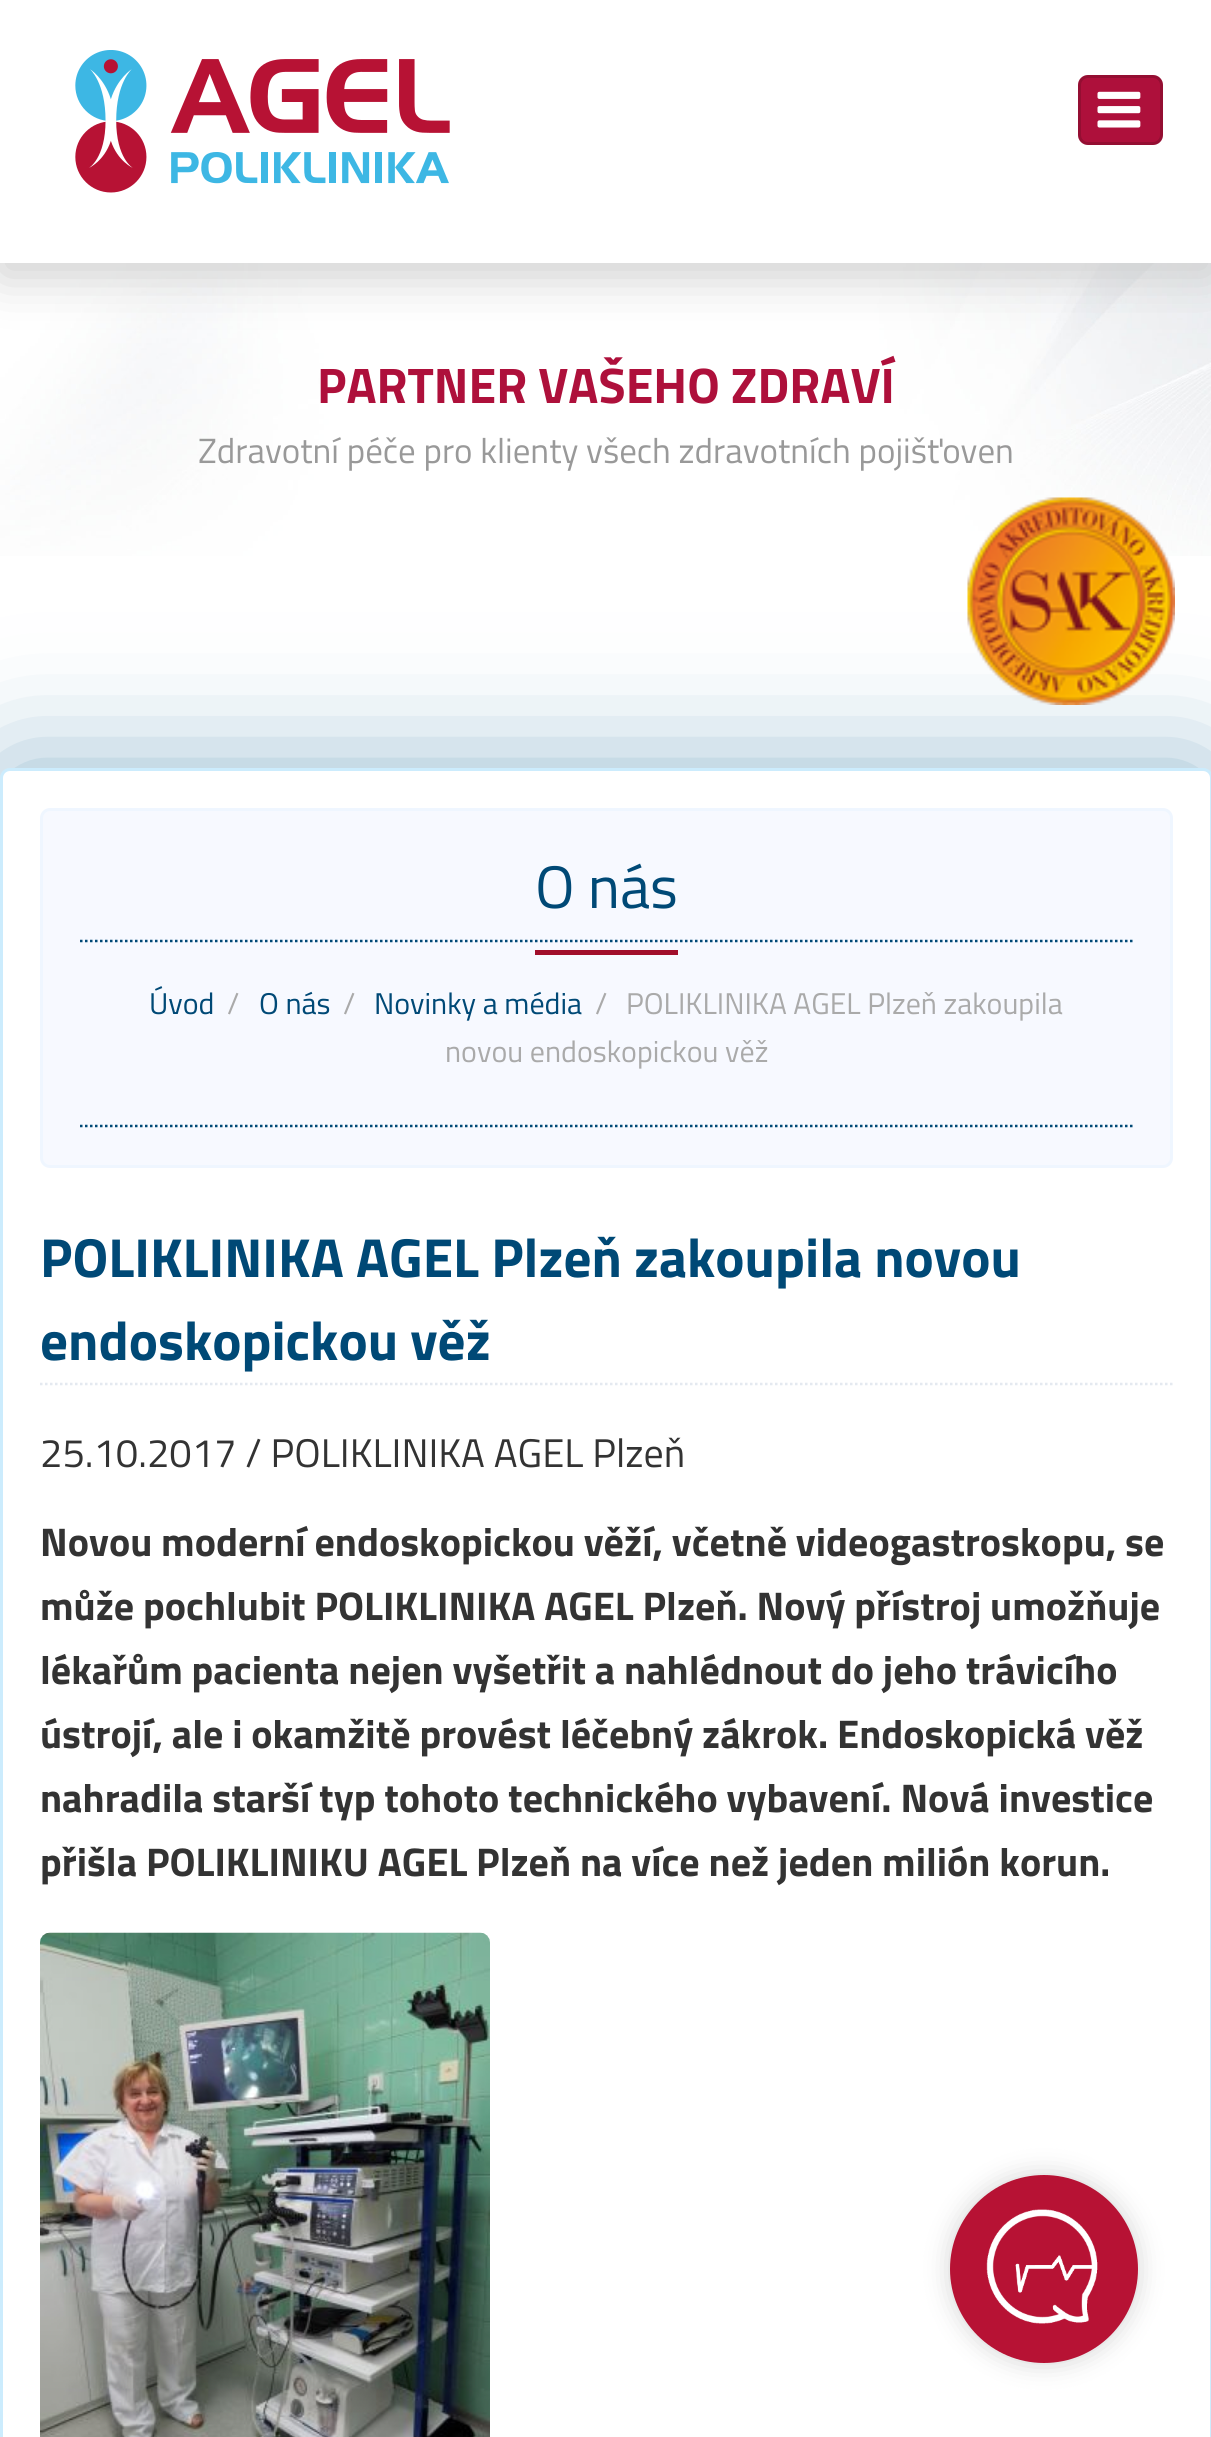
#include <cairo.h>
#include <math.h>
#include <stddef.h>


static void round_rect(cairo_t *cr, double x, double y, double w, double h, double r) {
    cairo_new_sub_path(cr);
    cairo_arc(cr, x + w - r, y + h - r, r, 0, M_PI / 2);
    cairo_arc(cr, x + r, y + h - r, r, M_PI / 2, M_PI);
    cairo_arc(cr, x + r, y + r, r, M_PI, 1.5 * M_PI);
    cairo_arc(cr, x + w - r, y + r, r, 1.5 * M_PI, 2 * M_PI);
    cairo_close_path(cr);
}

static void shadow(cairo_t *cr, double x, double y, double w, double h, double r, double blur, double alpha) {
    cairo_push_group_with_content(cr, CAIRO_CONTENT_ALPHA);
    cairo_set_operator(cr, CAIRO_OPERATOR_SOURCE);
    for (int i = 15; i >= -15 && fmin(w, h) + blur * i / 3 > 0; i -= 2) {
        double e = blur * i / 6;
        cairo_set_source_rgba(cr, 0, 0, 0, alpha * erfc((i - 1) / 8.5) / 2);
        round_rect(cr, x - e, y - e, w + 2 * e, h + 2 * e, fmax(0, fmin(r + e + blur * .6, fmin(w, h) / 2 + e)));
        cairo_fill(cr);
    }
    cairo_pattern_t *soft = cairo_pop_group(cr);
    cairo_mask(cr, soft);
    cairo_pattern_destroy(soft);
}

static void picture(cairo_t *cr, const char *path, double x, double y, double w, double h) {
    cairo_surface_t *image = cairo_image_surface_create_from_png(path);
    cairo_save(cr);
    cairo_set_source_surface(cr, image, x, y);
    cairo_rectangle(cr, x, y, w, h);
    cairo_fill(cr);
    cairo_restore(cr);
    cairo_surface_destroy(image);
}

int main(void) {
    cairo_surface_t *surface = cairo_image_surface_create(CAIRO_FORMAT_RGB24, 1211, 2437);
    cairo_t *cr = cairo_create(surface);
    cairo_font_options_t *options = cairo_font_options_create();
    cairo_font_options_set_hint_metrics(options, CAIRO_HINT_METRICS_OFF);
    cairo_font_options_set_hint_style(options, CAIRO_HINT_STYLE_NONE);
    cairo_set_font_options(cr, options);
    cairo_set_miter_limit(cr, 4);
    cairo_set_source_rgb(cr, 1, 1, 1);
    cairo_paint(cr);
    picture(cr, "img1.png", 0, 263, 1211, 293);
    cairo_set_source_rgb(cr, 0.8, 0.8, 0.8);
    shadow(cr, 0, 13, 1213, 262, 0, 25, 1);
    cairo_set_source_rgb(cr, 1, 1, 1);
    cairo_rectangle(cr, 0, 0, 1211, 263);
    cairo_fill(cr);
    picture(cr, "img2.png", 75, 50, 375, 143);
    cairo_set_source_rgb(cr, 0.682, 0.063, 0.231);
    round_rect(cr, 1078, 75, 85, 70, 10);
    cairo_fill(cr);
    round_rect(cr, 1079.5, 76.5, 82, 67, 8.5);
    cairo_set_source_rgba(cr, 0, 0, 0, 0.15);
    cairo_set_line_width(cr, 3);
    cairo_stroke(cr);
    picture(cr, "img3.png", 1097, 91, 44, 37);
    cairo_select_font_face(cr, "Titillium Web", CAIRO_FONT_SLANT_NORMAL, CAIRO_FONT_WEIGHT_BOLD);
    cairo_set_font_size(cr, 50);
    cairo_set_source_rgb(cr, 0.682, 0.063, 0.231);
    cairo_move_to(cr, 317, 403);
    cairo_show_text(cr, "PARTNER VAŠEHO ZDRAVÍ");
    cairo_select_font_face(cr, "Titillium Web", CAIRO_FONT_SLANT_NORMAL, CAIRO_FONT_WEIGHT_NORMAL);
    cairo_set_font_size(cr, 35);
    cairo_set_source_rgb(cr, 0.6, 0.6, 0.6);
    cairo_move_to(cr, 198, 463);
    cairo_show_text(cr, "Zdravotní péče pro klienty všech zdravotních pojišťoven");
    cairo_set_source_rgb(cr, 0.561, 0.718, 0.808);
    shadow(cr, 0, 768, 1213, 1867, 10, 62.5, 1);
    picture(cr, "img4.png", 967, 497, 208, 208);
    cairo_set_source_rgb(cr, 1, 1, 1);
    round_rect(cr, 1.5, 769.5, 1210, 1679, 8.5);
    cairo_fill_preserve(cr);
    cairo_set_source_rgb(cr, 0.8, 0.922, 0.992);
    cairo_stroke(cr);
    cairo_set_source_rgb(cr, 0.965, 0.976, 1);
    round_rect(cr, 41.5, 809.5, 1130, 357, 8.5);
    cairo_fill_preserve(cr);
    cairo_set_source_rgb(cr, 0.937, 0.961, 1);
    cairo_stroke(cr);
    cairo_new_path(cr);
    cairo_move_to(cr, 80, 1126);
    cairo_line_to(cr, 1132.5, 1126);
    cairo_set_source_rgb(cr, 0, 0.286, 0.463);
    cairo_set_line_width(cr, 2.5);
    cairo_set_dash(cr, (double[]){2.5, 2.5}, 2, 0);
    cairo_stroke(cr);
    cairo_set_font_size(cr, 60);
    cairo_move_to(cr, 535, 908);
    cairo_show_text(cr, "O nás");
    cairo_set_source_rgb(cr, 0.631, 0.059, 0.169);
    cairo_rectangle(cr, 535, 950, 143, 5);
    cairo_fill(cr);
    cairo_new_path(cr);
    cairo_move_to(cr, 80, 941);
    cairo_line_to(cr, 1132.5, 941);
    cairo_set_source_rgb(cr, 0, 0.286, 0.463);
    cairo_stroke(cr);
    cairo_set_font_size(cr, 30);
    cairo_move_to(cr, 149, 1014);
    cairo_show_text(cr, "Úvod");
    cairo_set_source_rgb(cr, 0.667, 0.667, 0.667);
    cairo_move_to(cr, 227, 1014);
    cairo_show_text(cr, "/");
    cairo_set_source_rgb(cr, 0, 0.286, 0.463);
    cairo_move_to(cr, 259, 1014);
    cairo_show_text(cr, "O nás");
    cairo_set_source_rgb(cr, 0.667, 0.667, 0.667);
    cairo_move_to(cr, 343, 1014);
    cairo_show_text(cr, "/");
    cairo_set_source_rgb(cr, 0, 0.286, 0.463);
    cairo_move_to(cr, 374, 1014);
    cairo_show_text(cr, "Novinky a média");
    cairo_set_source_rgb(cr, 0.667, 0.667, 0.667);
    cairo_move_to(cr, 595, 1014);
    cairo_show_text(cr, "/");
    cairo_move_to(cr, 626, 1014);
    cairo_show_text(cr, "POLIKLINIKA AGEL Plzeň zakoupila");
    cairo_move_to(cr, 445, 1062);
    cairo_show_text(cr, "novou endoskopickou věž");
    cairo_new_path(cr);
    cairo_move_to(cr, 40, 1384);
    cairo_line_to(cr, 1172.5, 1384);
    cairo_set_source_rgb(cr, 0.894, 0.914, 0.941);
    cairo_stroke(cr);
    cairo_select_font_face(cr, "Titillium Web", CAIRO_FONT_SLANT_NORMAL, CAIRO_FONT_WEIGHT_BOLD);
    cairo_set_font_size(cr, 55);
    cairo_set_source_rgb(cr, 0, 0.286, 0.463);
    cairo_move_to(cr, 40, 1277);
    cairo_show_text(cr, "POLIKLINIKA AGEL Plzeň zakoupila novou");
    cairo_move_to(cr, 40, 1360);
    cairo_show_text(cr, "endoskopickou věž");
    cairo_select_font_face(cr, "Titillium Web", CAIRO_FONT_SLANT_NORMAL, CAIRO_FONT_WEIGHT_NORMAL);
    cairo_set_font_size(cr, 40);
    cairo_set_source_rgb(cr, 0.2, 0.2, 0.2);
    cairo_move_to(cr, 40, 1467);
    cairo_show_text(cr, "25.10.2017 / POLIKLINIKA AGEL Plzeň");
    cairo_select_font_face(cr, "Titillium Web", CAIRO_FONT_SLANT_NORMAL, CAIRO_FONT_WEIGHT_BOLD);
    cairo_move_to(cr, 40, 1556);
    cairo_show_text(cr, "Novou moderní endoskopickou věží, včetně videogastroskopu, se");
    cairo_move_to(cr, 40, 1620);
    cairo_show_text(cr, "může pochlubit POLIKLINIKA AGEL Plzeň. Nový přístroj umožňuje");
    cairo_move_to(cr, 40, 1684);
    cairo_show_text(cr, "lékařům pacienta nejen vyšetřit a nahlédnout do jeho trávicího");
    cairo_move_to(cr, 40, 1748);
    cairo_show_text(cr, "ústrojí, ale i okamžitě provést léčebný zákrok. Endoskopická věž");
    cairo_move_to(cr, 40, 1812);
    cairo_show_text(cr, "nahradila starší typ tohoto technického vybavení. Nová investice");
    cairo_move_to(cr, 40, 1876);
    cairo_show_text(cr, "přišla POLIKLINIKU AGEL Plzeň na více než jeden milión korun.");
    picture(cr, "img5.png", 40, 1932, 450, 505);
    cairo_set_source_rgb(cr, 0.655, 0.655, 0.655);
    shadow(cr, 950, 2175, 188, 188, 94, 12.5, 0.5);
    cairo_set_source_rgb(cr, 0.718, 0.071, 0.204);
    cairo_arc(cr, 1044, 2269, 94, 0, 2 * M_PI);
    cairo_fill(cr);
    picture(cr, "img6.png", 986, 2209, 112, 115);
    cairo_surface_write_to_png(surface, "page.png");
    cairo_font_options_destroy(options);
    cairo_destroy(cr);
    cairo_surface_destroy(surface);
    return 0;
}
